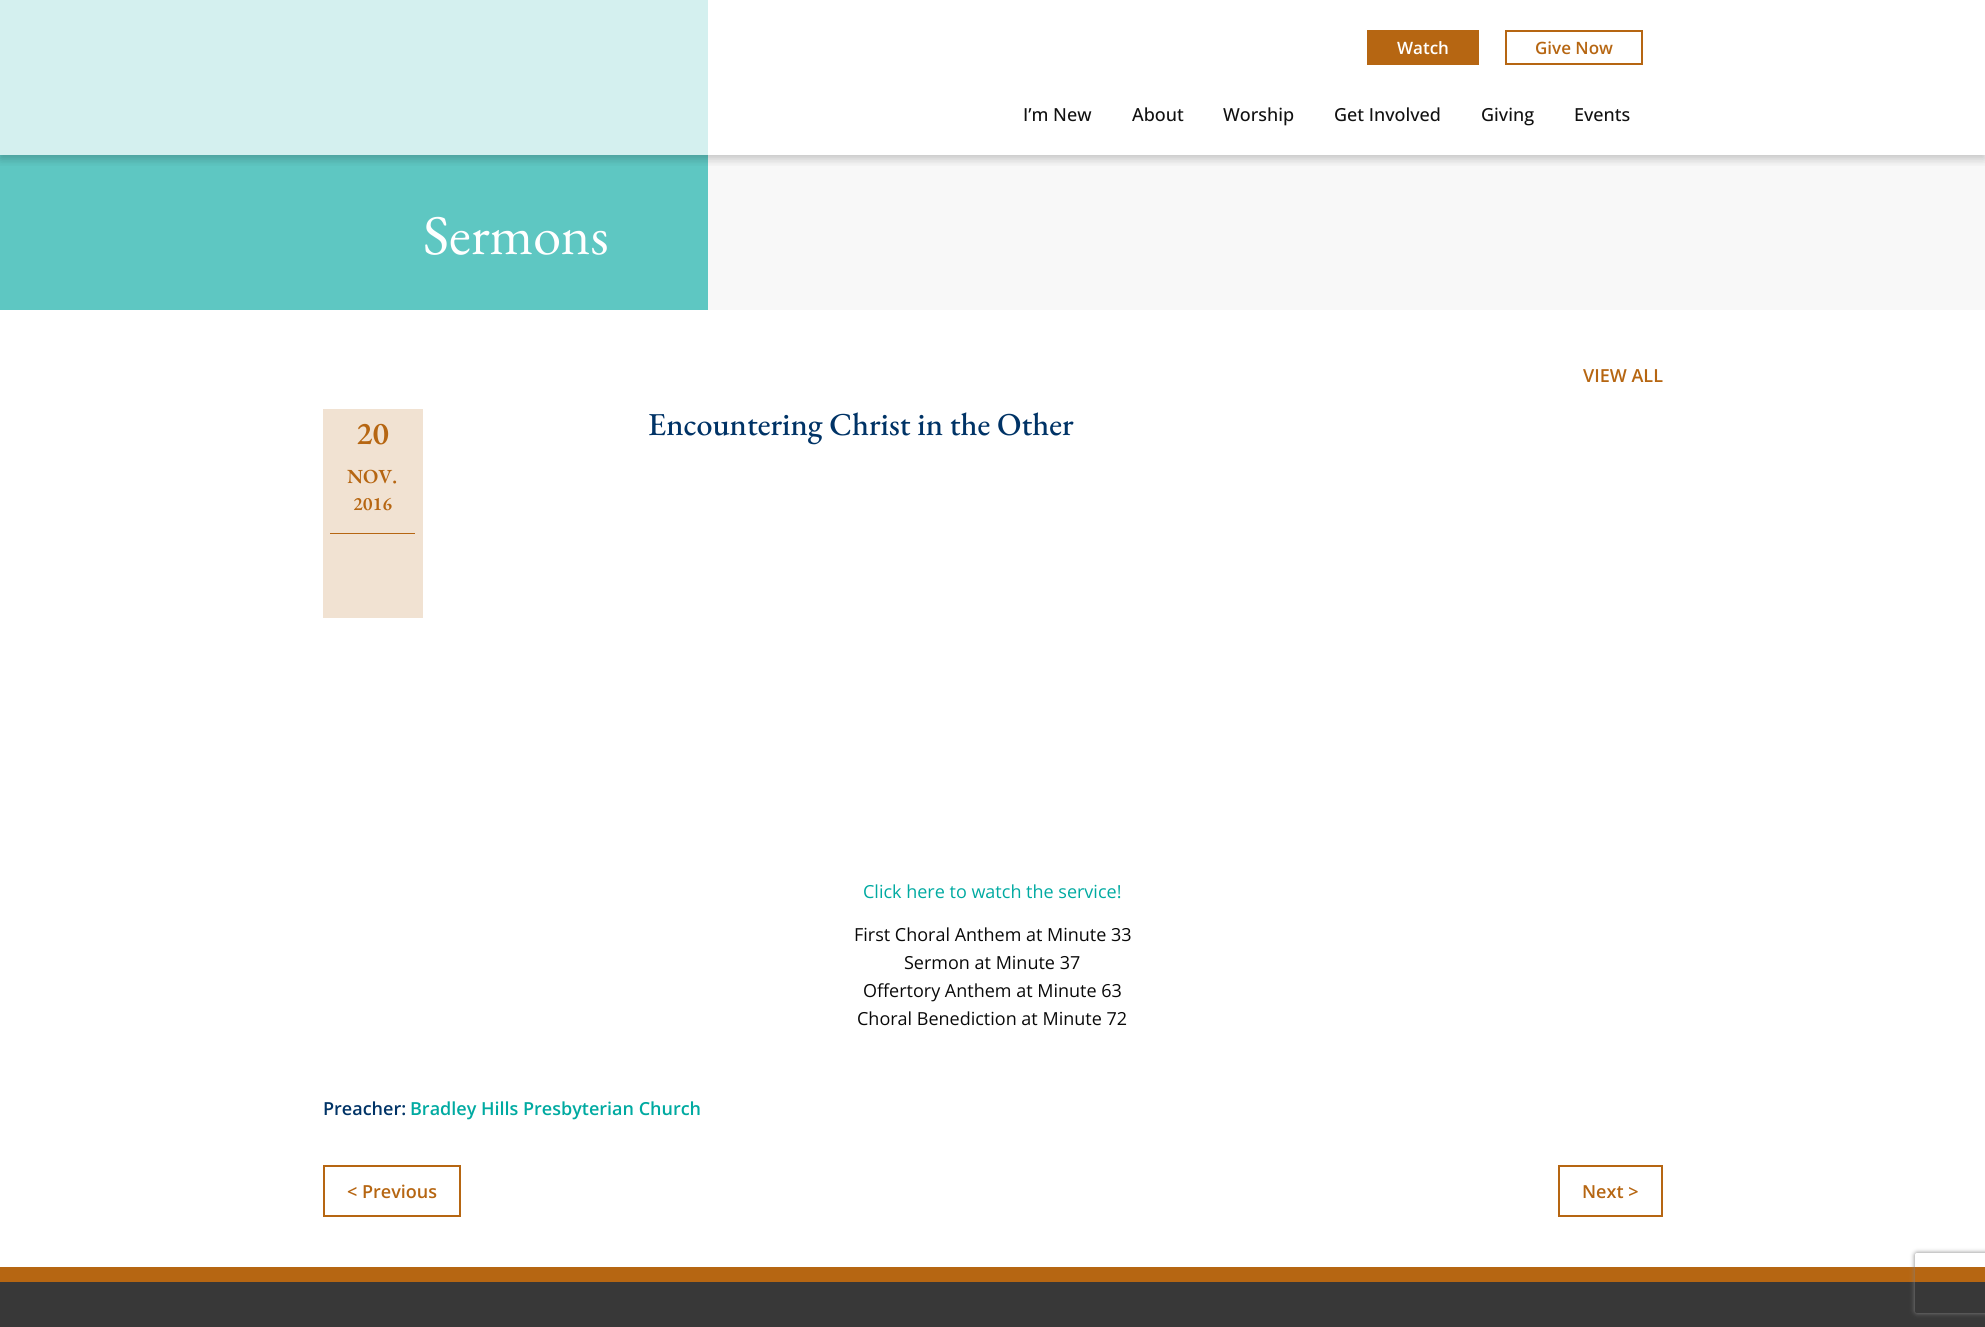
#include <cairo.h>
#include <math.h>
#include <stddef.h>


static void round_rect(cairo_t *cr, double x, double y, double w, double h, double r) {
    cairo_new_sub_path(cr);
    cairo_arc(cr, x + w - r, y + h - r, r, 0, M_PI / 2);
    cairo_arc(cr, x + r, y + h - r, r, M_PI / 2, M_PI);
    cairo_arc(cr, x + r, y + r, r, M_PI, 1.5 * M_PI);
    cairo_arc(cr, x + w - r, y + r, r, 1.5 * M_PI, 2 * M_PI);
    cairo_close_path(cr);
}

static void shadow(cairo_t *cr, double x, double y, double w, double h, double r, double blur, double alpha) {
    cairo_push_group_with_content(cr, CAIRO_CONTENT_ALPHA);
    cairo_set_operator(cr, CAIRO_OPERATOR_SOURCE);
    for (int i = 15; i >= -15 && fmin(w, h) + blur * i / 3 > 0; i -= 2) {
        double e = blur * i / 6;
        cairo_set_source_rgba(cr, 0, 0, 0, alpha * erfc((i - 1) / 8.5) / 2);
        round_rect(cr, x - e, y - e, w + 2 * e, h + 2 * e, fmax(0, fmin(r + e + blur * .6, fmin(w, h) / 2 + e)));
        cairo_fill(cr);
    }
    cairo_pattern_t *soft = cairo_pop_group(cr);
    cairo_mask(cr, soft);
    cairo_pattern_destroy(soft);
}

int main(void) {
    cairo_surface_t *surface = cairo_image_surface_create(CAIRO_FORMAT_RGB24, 1985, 1327);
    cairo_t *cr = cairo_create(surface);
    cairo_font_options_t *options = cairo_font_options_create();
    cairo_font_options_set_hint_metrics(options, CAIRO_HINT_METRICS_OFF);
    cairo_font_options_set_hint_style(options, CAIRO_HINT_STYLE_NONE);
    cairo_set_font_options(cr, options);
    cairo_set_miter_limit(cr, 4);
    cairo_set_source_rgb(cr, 1, 1, 1);
    cairo_paint(cr);
    cairo_set_source_rgb(cr, 0.969, 0.969, 0.969);
    cairo_rectangle(cr, 708, 155, 1277, 155);
    cairo_fill(cr);
    cairo_set_source_rgb(cr, 0.369, 0.78, 0.761);
    cairo_rectangle(cr, 0, 155, 708, 155);
    cairo_fill(cr);
    cairo_set_source_rgb(cr, 0.831, 0.941, 0.937);
    cairo_rectangle(cr, 0, 0, 708, 155);
    cairo_fill(cr);
    cairo_save(cr);
    cairo_rectangle(cr, 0, 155, 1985, 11);
    cairo_clip(cr);
    cairo_set_source_rgb(cr, 0, 0, 0);
    shadow(cr, 0, 4, 1985, 155, 0, 5, 0.22);
    cairo_restore(cr);
    cairo_set_source_rgb(cr, 0.714, 0.4, 0.071);
    cairo_rectangle(cr, 1367, 30, 112, 35);
    cairo_fill(cr);
    cairo_select_font_face(cr, "Open Sans SemiBold", CAIRO_FONT_SLANT_NORMAL, CAIRO_FONT_WEIGHT_NORMAL);
    cairo_set_font_size(cr, 17);
    cairo_set_source_rgb(cr, 1, 1, 1);
    cairo_move_to(cr, 1397, 54);
    cairo_show_text(cr, "Watch");
    cairo_rectangle(cr, 1506, 31, 136, 33);
    cairo_set_source_rgb(cr, 0.714, 0.4, 0.071);
    cairo_stroke(cr);
    cairo_move_to(cr, 1535, 54);
    cairo_show_text(cr, "Give Now");
    cairo_select_font_face(cr, "Open Sans Medium", CAIRO_FONT_SLANT_NORMAL, CAIRO_FONT_WEIGHT_NORMAL);
    cairo_set_font_size(cr, 18);
    cairo_set_source_rgb(cr, 0.067, 0.067, 0.067);
    cairo_move_to(cr, 1023, 121);
    cairo_show_text(cr, "I’m New");
    cairo_move_to(cr, 1132, 121);
    cairo_show_text(cr, "About");
    cairo_move_to(cr, 1223, 121);
    cairo_show_text(cr, "Worship");
    cairo_move_to(cr, 1334, 121);
    cairo_show_text(cr, "Get Involved");
    cairo_move_to(cr, 1481, 121);
    cairo_show_text(cr, "Giving");
    cairo_move_to(cr, 1574, 121);
    cairo_show_text(cr, "Events");
    cairo_select_font_face(cr, "EB Garamond", CAIRO_FONT_SLANT_NORMAL, CAIRO_FONT_WEIGHT_NORMAL);
    cairo_set_font_size(cr, 56);
    cairo_set_source_rgb(cr, 1, 1, 1);
    cairo_move_to(cr, 423, 254);
    cairo_show_text(cr, "Sermons");
    cairo_select_font_face(cr, "Open Sans SemiBold", CAIRO_FONT_SLANT_NORMAL, CAIRO_FONT_WEIGHT_NORMAL);
    cairo_set_font_size(cr, 18);
    cairo_set_source_rgb(cr, 0.714, 0.4, 0.071);
    cairo_move_to(cr, 1583, 382);
    cairo_show_text(cr, "VIEW ALL");
    cairo_set_source_rgb(cr, 0.945, 0.886, 0.824);
    cairo_rectangle(cr, 323, 409, 100, 209);
    cairo_fill(cr);
    cairo_select_font_face(cr, "EB Garamond SemiBold", CAIRO_FONT_SLANT_NORMAL, CAIRO_FONT_WEIGHT_NORMAL);
    cairo_set_font_size(cr, 32);
    cairo_set_source_rgb(cr, 0.714, 0.4, 0.071);
    cairo_move_to(cr, 356, 444);
    cairo_show_text(cr, "20");
    cairo_set_font_size(cr, 20);
    cairo_move_to(cr, 347, 483);
    cairo_show_text(cr, "NOV.");
    cairo_set_font_size(cr, 19);
    cairo_move_to(cr, 353, 510);
    cairo_show_text(cr, "2016");
    cairo_rectangle(cr, 330, 533, 85, 1);
    cairo_fill(cr);
    cairo_select_font_face(cr, "EB Garamond Medium", CAIRO_FONT_SLANT_NORMAL, CAIRO_FONT_WEIGHT_NORMAL);
    cairo_set_font_size(cr, 32);
    cairo_set_source_rgb(cr, 0, 0.2, 0.4);
    cairo_move_to(cr, 648, 435);
    cairo_show_text(cr, "Encountering Christ in the Other");
    cairo_select_font_face(cr, "Open Sans", CAIRO_FONT_SLANT_NORMAL, CAIRO_FONT_WEIGHT_NORMAL);
    cairo_set_font_size(cr, 18);
    cairo_set_source_rgb(cr, 0, 0.667, 0.631);
    cairo_move_to(cr, 863, 898);
    cairo_show_text(cr, "Click here to watch the service!");
    cairo_set_source_rgb(cr, 0.039, 0.039, 0.039);
    cairo_move_to(cr, 854, 941);
    cairo_show_text(cr, "First Choral Anthem at Minute 33");
    cairo_move_to(cr, 904, 969);
    cairo_show_text(cr, "Sermon at Minute 37");
    cairo_move_to(cr, 863, 997);
    cairo_show_text(cr, "Offertory Anthem at Minute 63");
    cairo_move_to(cr, 857, 1025);
    cairo_show_text(cr, "Choral Benediction at Minute 72");
    cairo_select_font_face(cr, "Open Sans SemiBold", CAIRO_FONT_SLANT_NORMAL, CAIRO_FONT_WEIGHT_NORMAL);
    cairo_set_source_rgb(cr, 0, 0.2, 0.4);
    cairo_move_to(cr, 323, 1115);
    cairo_show_text(cr, "Preacher:");
    cairo_set_source_rgb(cr, 0, 0.667, 0.631);
    cairo_move_to(cr, 410, 1115);
    cairo_show_text(cr, "Bradley Hills Presbyterian Church");
    cairo_rectangle(cr, 324, 1166, 136, 50);
    cairo_set_source_rgb(cr, 0.714, 0.4, 0.071);
    cairo_stroke(cr);
    cairo_move_to(cr, 347, 1198);
    cairo_show_text(cr, "< Previous");
    cairo_rectangle(cr, 1559, 1166, 103, 50);
    cairo_stroke(cr);
    cairo_move_to(cr, 1582, 1198);
    cairo_show_text(cr, "Next >");
    cairo_set_source_rgb(cr, 0.22, 0.22, 0.22);
    cairo_rectangle(cr, 0, 1282, 1985, 45);
    cairo_fill(cr);
    cairo_set_source_rgb(cr, 0.714, 0.4, 0.071);
    cairo_rectangle(cr, 0, 1267, 1985, 15);
    cairo_fill(cr);
    cairo_save(cr);
    cairo_set_fill_rule(cr, CAIRO_FILL_RULE_EVEN_ODD);
    cairo_new_path(cr);
    cairo_move_to(cr, 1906, 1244);
    cairo_line_to(cr, 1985, 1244);
    cairo_line_to(cr, 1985, 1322);
    cairo_line_to(cr, 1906, 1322);
    cairo_close_path(cr);
    cairo_move_to(cr, 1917, 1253);
    cairo_line_to(cr, 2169, 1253);
    cairo_curve_to(cr, 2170, 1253, 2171, 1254, 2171, 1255);
    cairo_line_to(cr, 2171, 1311);
    cairo_curve_to(cr, 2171, 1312, 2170, 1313, 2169, 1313);
    cairo_line_to(cr, 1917, 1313);
    cairo_curve_to(cr, 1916, 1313, 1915, 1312, 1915, 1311);
    cairo_line_to(cr, 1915, 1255);
    cairo_curve_to(cr, 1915, 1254, 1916, 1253, 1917, 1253);
    cairo_close_path(cr);
    cairo_clip(cr);
    cairo_set_source_rgb(cr, 0.502, 0.502, 0.502);
    shadow(cr, 1915, 1253, 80, 60, 2, 2.5, 1);
    cairo_restore(cr);
    cairo_surface_write_to_png(surface, "page.png");
    cairo_font_options_destroy(options);
    cairo_destroy(cr);
    cairo_surface_destroy(surface);
    return 0;
}
